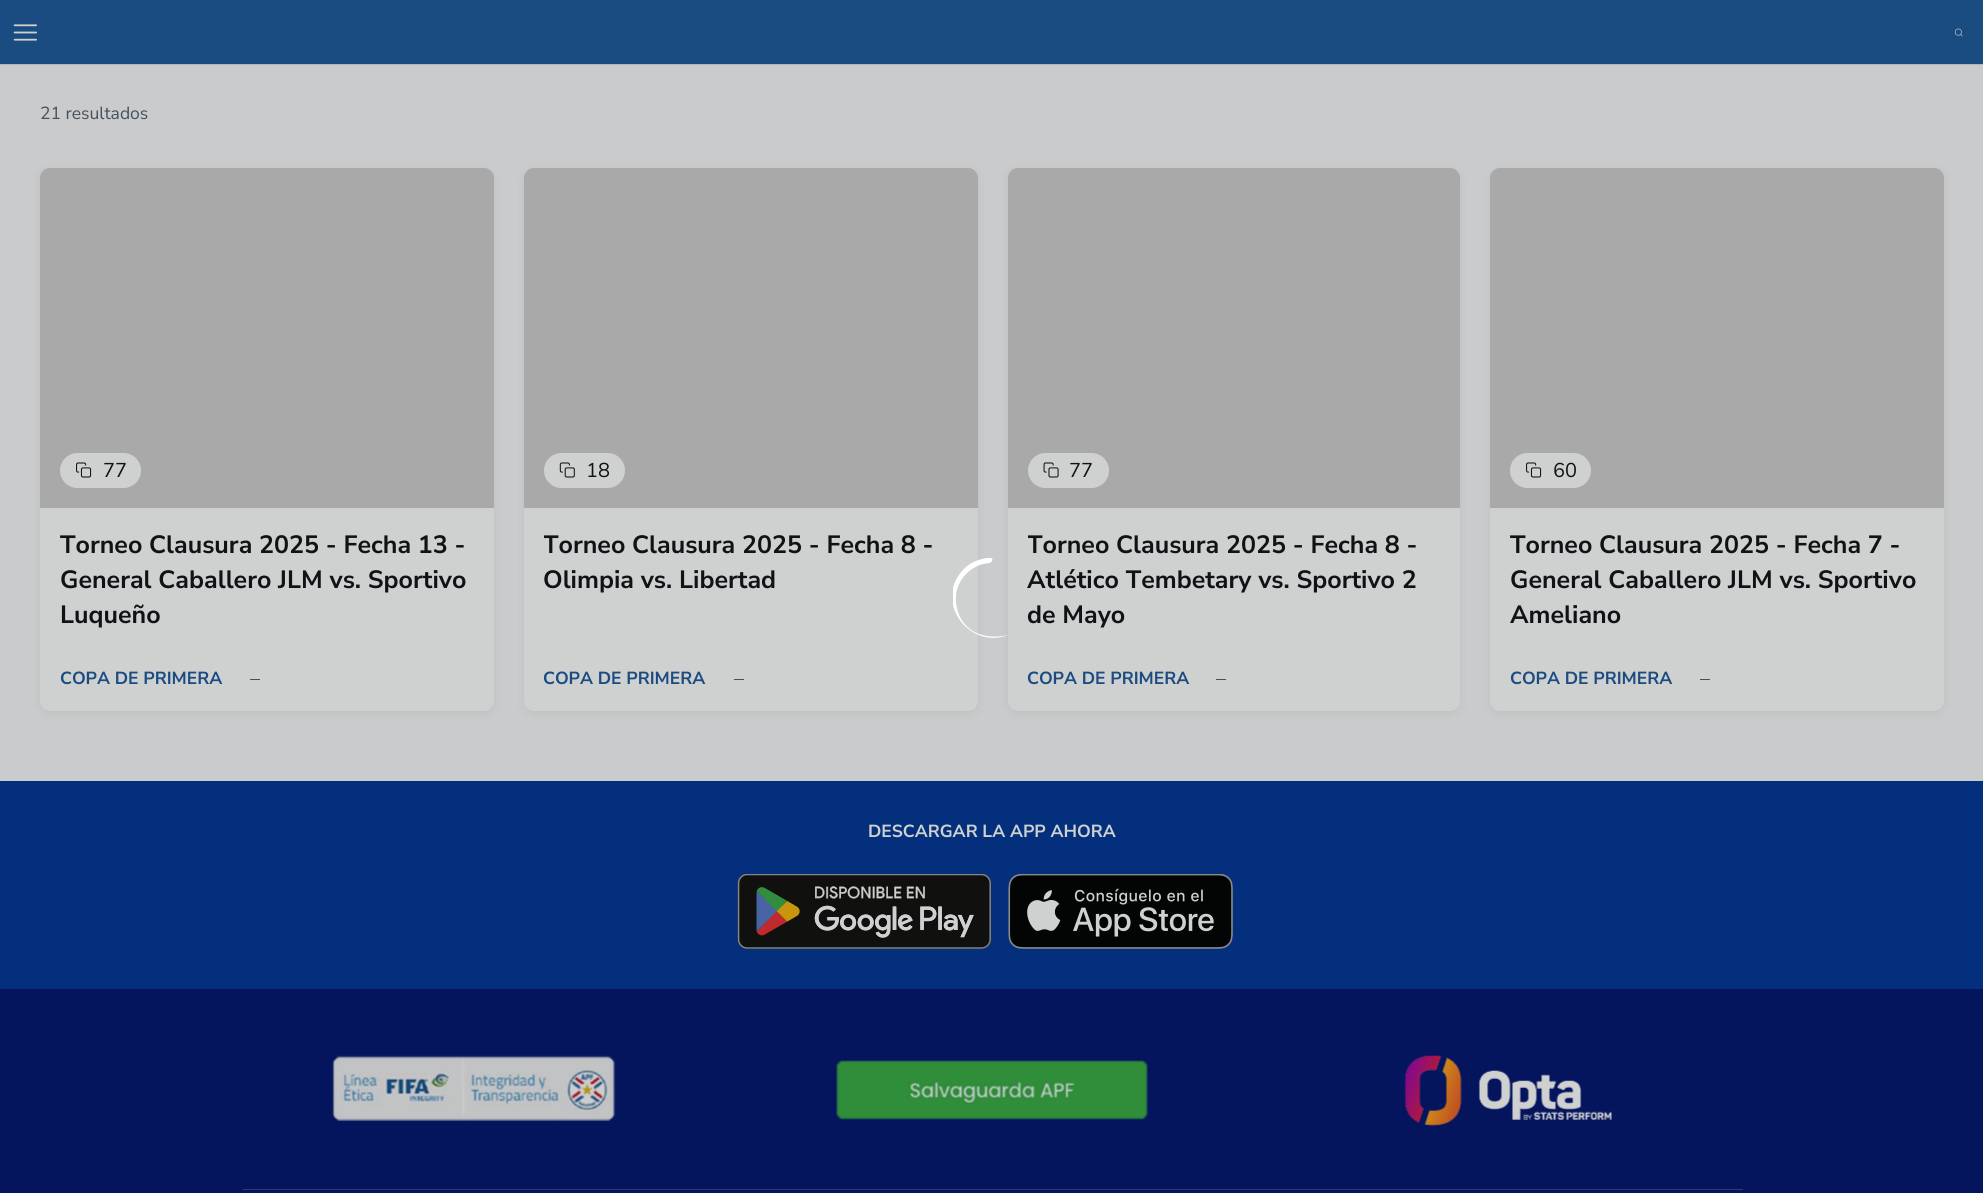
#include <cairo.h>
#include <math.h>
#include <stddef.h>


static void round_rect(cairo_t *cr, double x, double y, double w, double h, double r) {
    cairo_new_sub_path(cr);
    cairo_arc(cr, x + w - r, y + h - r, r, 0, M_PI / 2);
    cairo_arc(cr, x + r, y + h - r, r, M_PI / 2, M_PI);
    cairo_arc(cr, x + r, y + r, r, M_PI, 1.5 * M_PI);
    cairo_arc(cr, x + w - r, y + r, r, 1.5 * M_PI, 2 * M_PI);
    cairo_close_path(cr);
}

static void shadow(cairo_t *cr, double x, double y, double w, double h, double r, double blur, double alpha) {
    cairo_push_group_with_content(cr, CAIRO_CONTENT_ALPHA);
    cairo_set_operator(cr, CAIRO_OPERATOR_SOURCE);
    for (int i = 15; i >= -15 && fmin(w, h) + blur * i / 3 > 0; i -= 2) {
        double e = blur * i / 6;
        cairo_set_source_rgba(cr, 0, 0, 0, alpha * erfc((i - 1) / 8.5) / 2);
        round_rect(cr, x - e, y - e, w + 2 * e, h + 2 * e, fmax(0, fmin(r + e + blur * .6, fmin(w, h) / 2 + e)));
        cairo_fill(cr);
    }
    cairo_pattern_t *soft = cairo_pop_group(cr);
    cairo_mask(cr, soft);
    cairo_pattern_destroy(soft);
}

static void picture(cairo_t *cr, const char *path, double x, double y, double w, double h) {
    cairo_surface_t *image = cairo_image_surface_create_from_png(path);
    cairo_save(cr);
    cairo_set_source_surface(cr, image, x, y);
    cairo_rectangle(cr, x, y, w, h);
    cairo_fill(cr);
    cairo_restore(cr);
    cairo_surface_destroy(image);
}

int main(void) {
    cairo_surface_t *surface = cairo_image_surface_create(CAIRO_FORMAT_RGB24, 1983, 1193);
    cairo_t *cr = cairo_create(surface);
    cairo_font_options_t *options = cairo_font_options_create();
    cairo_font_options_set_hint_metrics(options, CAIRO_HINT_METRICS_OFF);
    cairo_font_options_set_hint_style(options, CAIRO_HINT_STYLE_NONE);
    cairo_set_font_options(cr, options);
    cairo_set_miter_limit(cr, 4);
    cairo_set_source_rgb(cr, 0.788, 0.796, 0.8);
    cairo_paint(cr);
    cairo_set_source_rgb(cr, 0.102, 0.298, 0.506);
    cairo_rectangle(cr, 0, 0, 1983, 64);
    cairo_fill(cr);
    cairo_set_source_rgb(cr, 0.694, 0.714, 0.729);
    cairo_rectangle(cr, 0, 64, 1983, 1);
    cairo_fill(cr);
    picture(cr, "img1.png", 13, 24, 24, 17);
    picture(cr, "img2.png", 1954, 28, 9, 9);
    cairo_select_font_face(cr, "Nunito Sans", CAIRO_FONT_SLANT_NORMAL, CAIRO_FONT_WEIGHT_NORMAL);
    cairo_set_font_size(cr, 17.5);
    cairo_set_source_rgb(cr, 0.267, 0.318, 0.357);
    cairo_move_to(cr, 40, 119);
    cairo_show_text(cr, "21 resultados");
    cairo_set_source_rgb(cr, 0.012, 0.016, 0.016);
    shadow(cr, 40, 170, 454, 544, 10, 5, 0.06);
    cairo_set_source_rgb(cr, 0.812, 0.816, 0.816);
    round_rect(cr, 40, 168, 454, 543, 10);
    cairo_fill(cr);
    cairo_set_source_rgba(cr, 0.063, 0.075, 0.086, 0.2);
    cairo_new_path(cr);
    cairo_move_to(cr, 50, 168);
    cairo_line_to(cr, 484, 168);
    cairo_curve_to(cr, 489.5, 168, 494, 172.5, 494, 178);
    cairo_line_to(cr, 494, 508);
    cairo_line_to(cr, 40, 508);
    cairo_line_to(cr, 40, 178);
    cairo_curve_to(cr, 40, 172.5, 44.5, 168, 50, 168);
    cairo_close_path(cr);
    cairo_fill(cr);
    cairo_set_source_rgb(cr, 0.812, 0.816, 0.816);
    round_rect(cr, 60, 453, 81, 35, 17.5);
    cairo_fill(cr);
    picture(cr, "img3.png", 76, 462, 16, 16);
    cairo_set_font_size(cr, 20);
    cairo_set_source_rgb(cr, 0.063, 0.075, 0.086);
    cairo_move_to(cr, 103, 477);
    cairo_show_text(cr, "77");
    cairo_select_font_face(cr, "Nunito Sans", CAIRO_FONT_SLANT_NORMAL, CAIRO_FONT_WEIGHT_BOLD);
    cairo_set_font_size(cr, 25);
    cairo_move_to(cr, 60, 553);
    cairo_show_text(cr, "Torneo Clausura 2025 - Fecha 13 -");
    cairo_move_to(cr, 60, 588);
    cairo_show_text(cr, "General Caballero JLM vs. Sportivo");
    cairo_move_to(cr, 60, 623);
    cairo_show_text(cr, "Luqueño");
    cairo_set_font_size(cr, 17.5);
    cairo_set_source_rgb(cr, 0.102, 0.298, 0.506);
    cairo_move_to(cr, 60, 684);
    cairo_show_text(cr, "COPA DE PRIMERA");
    cairo_set_source_rgb(cr, 0.267, 0.318, 0.357);
    cairo_rectangle(cr, 250, 679, 10, 1);
    cairo_fill(cr);
    cairo_set_source_rgb(cr, 0.012, 0.016, 0.016);
    shadow(cr, 524, 170, 454, 544, 10, 5, 0.06);
    cairo_set_source_rgb(cr, 0.812, 0.816, 0.816);
    round_rect(cr, 524, 168, 454, 543, 10);
    cairo_fill(cr);
    cairo_set_source_rgba(cr, 0.063, 0.075, 0.086, 0.2);
    cairo_new_path(cr);
    cairo_move_to(cr, 534, 168);
    cairo_line_to(cr, 968, 168);
    cairo_curve_to(cr, 973.5, 168, 978, 172.5, 978, 178);
    cairo_line_to(cr, 978, 508);
    cairo_line_to(cr, 524, 508);
    cairo_line_to(cr, 524, 178);
    cairo_curve_to(cr, 524, 172.5, 528.5, 168, 534, 168);
    cairo_close_path(cr);
    cairo_fill(cr);
    cairo_set_source_rgb(cr, 0.812, 0.816, 0.816);
    round_rect(cr, 544, 453, 81, 35, 17.5);
    cairo_fill(cr);
    picture(cr, "img4.png", 559, 462, 16, 16);
    cairo_select_font_face(cr, "Nunito Sans", CAIRO_FONT_SLANT_NORMAL, CAIRO_FONT_WEIGHT_NORMAL);
    cairo_set_font_size(cr, 20);
    cairo_set_source_rgb(cr, 0.063, 0.075, 0.086);
    cairo_move_to(cr, 586, 477);
    cairo_show_text(cr, "18");
    cairo_save(cr);
    cairo_rectangle(cr, 544, 528, 414, 70);
    cairo_clip(cr);
    cairo_select_font_face(cr, "Nunito Sans", CAIRO_FONT_SLANT_NORMAL, CAIRO_FONT_WEIGHT_BOLD);
    cairo_set_font_size(cr, 25);
    cairo_move_to(cr, 543, 553);
    cairo_show_text(cr, "Torneo Clausura 2025 - Fecha 8 -");
    cairo_restore(cr);
    cairo_select_font_face(cr, "Nunito Sans", CAIRO_FONT_SLANT_NORMAL, CAIRO_FONT_WEIGHT_BOLD);
    cairo_set_font_size(cr, 25);
    cairo_move_to(cr, 543, 588);
    cairo_show_text(cr, "Olimpia vs. Libertad");
    cairo_set_font_size(cr, 17.5);
    cairo_set_source_rgb(cr, 0.102, 0.298, 0.506);
    cairo_move_to(cr, 543, 684);
    cairo_show_text(cr, "COPA DE PRIMERA");
    cairo_set_source_rgb(cr, 0.267, 0.318, 0.357);
    cairo_rectangle(cr, 734, 679, 10, 1);
    cairo_fill(cr);
    cairo_set_source_rgb(cr, 0.012, 0.016, 0.016);
    shadow(cr, 1008, 170, 452, 544, 10, 5, 0.06);
    cairo_set_source_rgb(cr, 0.812, 0.816, 0.816);
    round_rect(cr, 1008, 168, 452, 543, 10);
    cairo_fill(cr);
    cairo_set_source_rgba(cr, 0.063, 0.075, 0.086, 0.2);
    cairo_new_path(cr);
    cairo_move_to(cr, 1018, 168);
    cairo_line_to(cr, 1450, 168);
    cairo_curve_to(cr, 1455.5, 168, 1460, 172.5, 1460, 178);
    cairo_line_to(cr, 1460, 508);
    cairo_line_to(cr, 1008, 508);
    cairo_line_to(cr, 1008, 178);
    cairo_curve_to(cr, 1008, 172.5, 1012.5, 168, 1018, 168);
    cairo_close_path(cr);
    cairo_fill(cr);
    cairo_set_source_rgb(cr, 0.812, 0.816, 0.816);
    round_rect(cr, 1028, 453, 81, 35, 17.5);
    cairo_fill(cr);
    picture(cr, "img5.png", 1043, 462, 16, 16);
    cairo_select_font_face(cr, "Nunito Sans", CAIRO_FONT_SLANT_NORMAL, CAIRO_FONT_WEIGHT_NORMAL);
    cairo_set_font_size(cr, 20);
    cairo_set_source_rgb(cr, 0.063, 0.075, 0.086);
    cairo_move_to(cr, 1069, 477);
    cairo_show_text(cr, "77");
    cairo_save(cr);
    cairo_rectangle(cr, 1028, 528, 412, 105);
    cairo_clip(cr);
    cairo_select_font_face(cr, "Nunito Sans", CAIRO_FONT_SLANT_NORMAL, CAIRO_FONT_WEIGHT_BOLD);
    cairo_set_font_size(cr, 25);
    cairo_move_to(cr, 1027, 553);
    cairo_show_text(cr, "Torneo Clausura 2025 - Fecha 8 -");
    cairo_restore(cr);
    cairo_select_font_face(cr, "Nunito Sans", CAIRO_FONT_SLANT_NORMAL, CAIRO_FONT_WEIGHT_BOLD);
    cairo_set_font_size(cr, 25);
    cairo_move_to(cr, 1027, 588);
    cairo_show_text(cr, "Atlético Tembetary vs. Sportivo 2");
    cairo_move_to(cr, 1027, 623);
    cairo_show_text(cr, "de Mayo");
    cairo_set_font_size(cr, 17.5);
    cairo_set_source_rgb(cr, 0.102, 0.298, 0.506);
    cairo_move_to(cr, 1027, 684);
    cairo_show_text(cr, "COPA DE PRIMERA");
    cairo_set_source_rgb(cr, 0.267, 0.318, 0.357);
    cairo_rectangle(cr, 1216, 679, 10, 1);
    cairo_fill(cr);
    cairo_set_source_rgb(cr, 0.012, 0.016, 0.016);
    shadow(cr, 1490, 170, 454, 544, 10, 5, 0.06);
    cairo_set_source_rgb(cr, 0.812, 0.816, 0.816);
    round_rect(cr, 1490, 168, 454, 543, 10);
    cairo_fill(cr);
    cairo_set_source_rgba(cr, 0.063, 0.075, 0.086, 0.2);
    cairo_new_path(cr);
    cairo_move_to(cr, 1500, 168);
    cairo_line_to(cr, 1934, 168);
    cairo_curve_to(cr, 1939.5, 168, 1944, 172.5, 1944, 178);
    cairo_line_to(cr, 1944, 508);
    cairo_line_to(cr, 1490, 508);
    cairo_line_to(cr, 1490, 178);
    cairo_curve_to(cr, 1490, 172.5, 1494.5, 168, 1500, 168);
    cairo_close_path(cr);
    cairo_fill(cr);
    cairo_set_source_rgb(cr, 0.812, 0.816, 0.816);
    round_rect(cr, 1510, 453, 81, 35, 17.5);
    cairo_fill(cr);
    picture(cr, "img3.png", 1526, 462, 16, 16);
    cairo_select_font_face(cr, "Nunito Sans", CAIRO_FONT_SLANT_NORMAL, CAIRO_FONT_WEIGHT_NORMAL);
    cairo_set_font_size(cr, 20);
    cairo_set_source_rgb(cr, 0.063, 0.075, 0.086);
    cairo_move_to(cr, 1553, 477);
    cairo_show_text(cr, "60");
    cairo_select_font_face(cr, "Nunito Sans", CAIRO_FONT_SLANT_NORMAL, CAIRO_FONT_WEIGHT_BOLD);
    cairo_set_font_size(cr, 25);
    cairo_move_to(cr, 1510, 553);
    cairo_show_text(cr, "Torneo Clausura 2025 - Fecha 7 -");
    cairo_move_to(cr, 1510, 588);
    cairo_show_text(cr, "General Caballero JLM vs. Sportivo");
    cairo_move_to(cr, 1510, 623);
    cairo_show_text(cr, "Ameliano");
    cairo_set_font_size(cr, 17.5);
    cairo_set_source_rgb(cr, 0.102, 0.298, 0.506);
    cairo_move_to(cr, 1510, 684);
    cairo_show_text(cr, "COPA DE PRIMERA");
    cairo_set_source_rgb(cr, 0.267, 0.318, 0.357);
    cairo_rectangle(cr, 1700, 679, 10, 1);
    cairo_fill(cr);
    cairo_save(cr);
    cairo_rectangle(cr, 953, 558, 80, 80);
    cairo_clip(cr);
    cairo_set_source_rgb(cr, 1, 1, 1);
    cairo_set_fill_rule(cr, CAIRO_FILL_RULE_EVEN_ODD);
    cairo_new_path(cr);
    cairo_move_to(cr, 990, 563);
    cairo_curve_to(cr, 970, 564, 954, 582, 956, 602);
    cairo_curve_to(cr, 957, 614, 962, 623, 971, 630);
    cairo_curve_to(cr, 982, 637, 995, 638, 1008, 635);
    cairo_curve_to(cr, 970, 650, 934, 603, 962, 571);
    cairo_curve_to(cr, 967, 565, 974, 561, 982, 559);
    cairo_curve_to(cr, 997, 555, 992, 562, 990, 563);
    cairo_close_path(cr);
    cairo_fill(cr);
    cairo_restore(cr);
    cairo_set_source_rgb(cr, 0.012, 0.184, 0.486);
    cairo_rectangle(cr, 0, 781, 1983, 208);
    cairo_fill(cr);
    cairo_set_source_rgb(cr, 0.812, 0.816, 0.816);
    cairo_move_to(cr, 868, 837);
    cairo_show_text(cr, "DESCARGAR LA APP AHORA");
    picture(cr, "img6.png", 737, 874, 254, 75);
    picture(cr, "img7.png", 1008, 874, 225, 75);
    cairo_set_source_rgb(cr, 0.016, 0.082, 0.365);
    cairo_rectangle(cr, 0, 989, 1983, 204);
    cairo_fill(cr);
    picture(cr, "img8.png", 332, 1055, 284, 66);
    picture(cr, "img9.png", 836, 1060, 312, 60);
    picture(cr, "img10.png", 1404, 1055, 208, 71);
    cairo_set_source_rgb(cr, 0.176, 0.231, 0.455);
    cairo_rectangle(cr, 243, 1189, 1500, 1);
    cairo_fill(cr);
    cairo_surface_write_to_png(surface, "page.png");
    cairo_font_options_destroy(options);
    cairo_destroy(cr);
    cairo_surface_destroy(surface);
    return 0;
}
